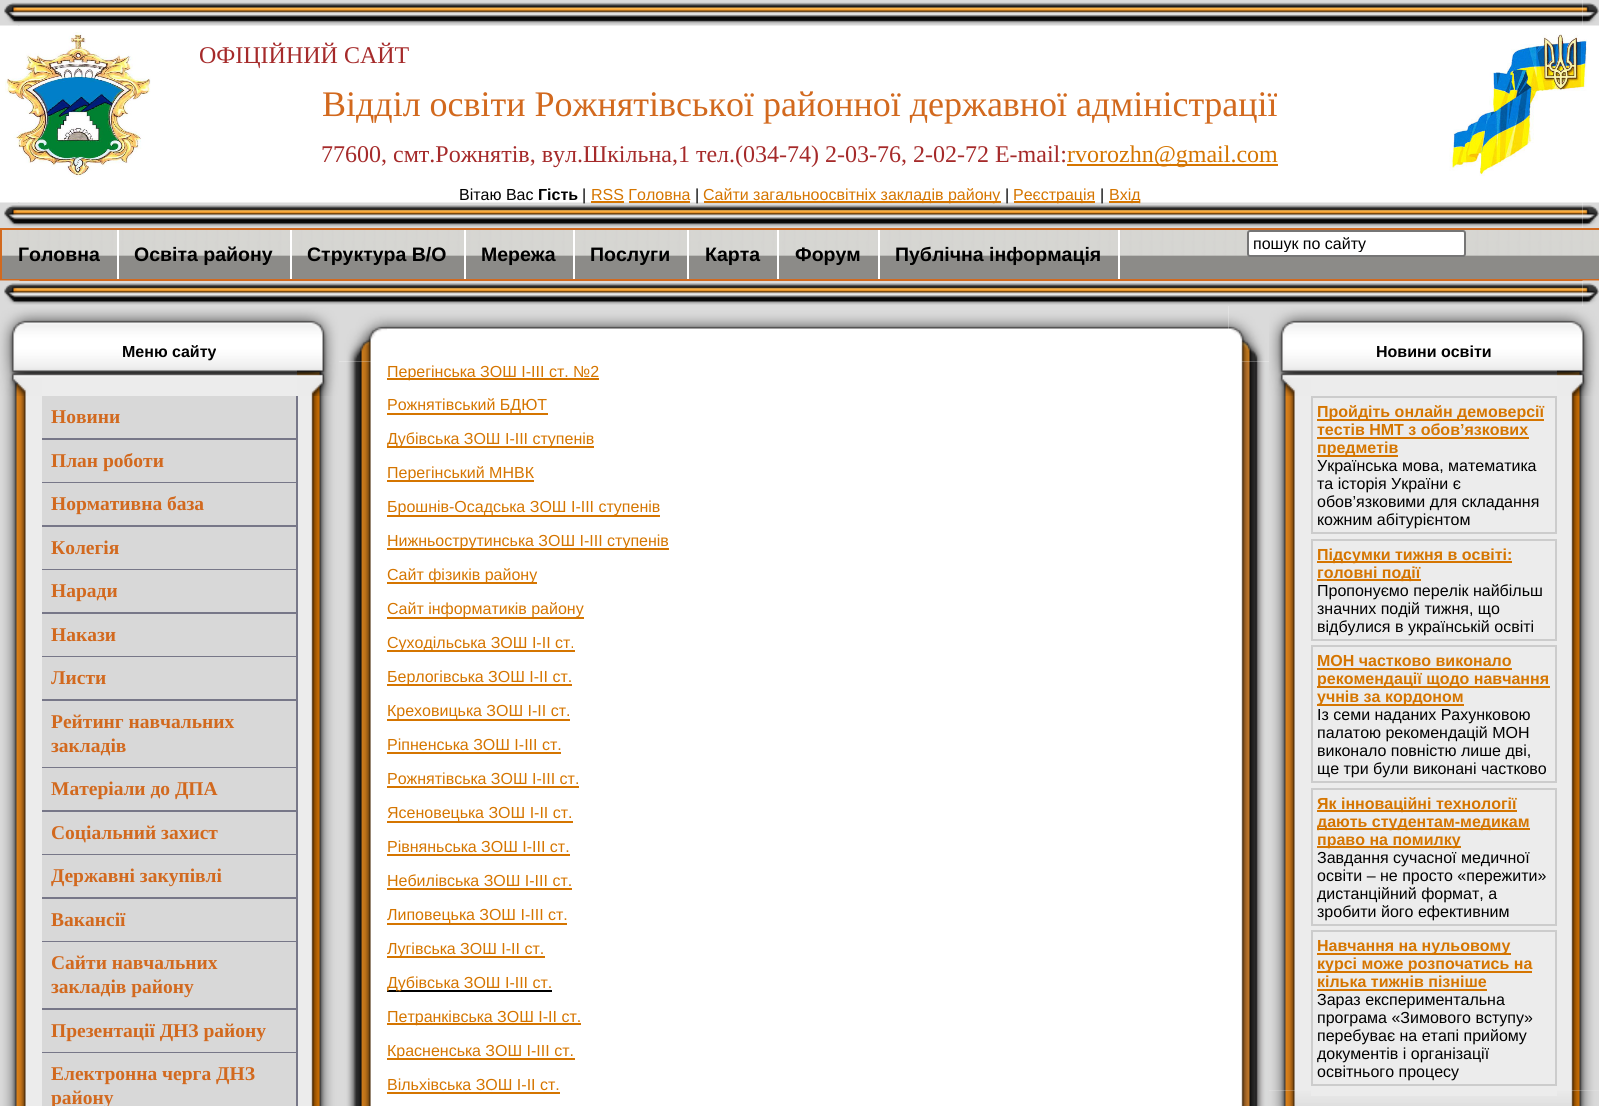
#include <cairo.h>
#include <math.h>
#include <stddef.h>


static void round_rect(cairo_t *cr, double x, double y, double w, double h, double r) {
    cairo_new_sub_path(cr);
    cairo_arc(cr, x + w - r, y + h - r, r, 0, M_PI / 2);
    cairo_arc(cr, x + r, y + h - r, r, M_PI / 2, M_PI);
    cairo_arc(cr, x + r, y + r, r, M_PI, 1.5 * M_PI);
    cairo_arc(cr, x + w - r, y + r, r, 1.5 * M_PI, 2 * M_PI);
    cairo_close_path(cr);
}

static void picture(cairo_t *cr, const char *path, double x, double y, double w, double h) {
    cairo_surface_t *image = cairo_image_surface_create_from_png(path);
    cairo_save(cr);
    cairo_set_source_surface(cr, image, x, y);
    cairo_rectangle(cr, x, y, w, h);
    cairo_fill(cr);
    cairo_restore(cr);
    cairo_surface_destroy(image);
}

int main(void) {
    cairo_surface_t *surface = cairo_image_surface_create(CAIRO_FORMAT_RGB24, 1599, 1106);
    cairo_t *cr = cairo_create(surface);
    cairo_font_options_t *options = cairo_font_options_create();
    cairo_font_options_set_hint_metrics(options, CAIRO_HINT_METRICS_OFF);
    cairo_font_options_set_hint_style(options, CAIRO_HINT_STYLE_NONE);
    cairo_set_font_options(cr, options);
    cairo_set_miter_limit(cr, 4);
    cairo_set_source_rgb(cr, 1, 1, 1);
    cairo_paint(cr);
    picture(cr, "img1.png", 0, 0, 18, 26);
    picture(cr, "img2.png", 18, 0, 1565, 26);
    picture(cr, "img3.png", 18, 25, 2, 1);
    picture(cr, "img4.png", 1582, 0, 17, 26);
    picture(cr, "img5.png", 5, 32, 146, 145);
    cairo_select_font_face(cr, "Liberation Serif", CAIRO_FONT_SLANT_NORMAL, CAIRO_FONT_WEIGHT_NORMAL);
    cairo_set_font_size(cr, 24);
    cairo_set_source_rgb(cr, 0.647, 0.165, 0.165);
    cairo_move_to(cr, 199, 63);
    cairo_show_text(cr, "ОФІЦІЙНИЙ САЙТ");
    cairo_set_font_size(cr, 36);
    cairo_set_source_rgb(cr, 0.824, 0.412, 0.118);
    cairo_move_to(cr, 322, 116);
    cairo_show_text(cr, "Відділ освіти Рожнятівської районної державної адміністрації");
    cairo_set_font_size(cr, 24);
    cairo_set_source_rgb(cr, 0.647, 0.165, 0.165);
    cairo_move_to(cr, 321, 162);
    cairo_show_text(cr, "77600, смт.Рожнятів, вул.Шкільна,1 тел.(034-74) 2-03-76, 2-02-72 E-mail:");
    cairo_set_source_rgb(cr, 0.835, 0.459, 0);
    cairo_rectangle(cr, 1067, 164, 211, 2);
    cairo_fill(cr);
    cairo_move_to(cr, 1067, 162);
    cairo_show_text(cr, "rvorozhn@gmail.com");
    picture(cr, "img6.png", 1449, 34, 138, 142);
    cairo_select_font_face(cr, "Liberation Sans", CAIRO_FONT_SLANT_NORMAL, CAIRO_FONT_WEIGHT_NORMAL);
    cairo_set_font_size(cr, 16);
    cairo_set_source_rgb(cr, 0, 0, 0);
    cairo_move_to(cr, 459, 200);
    cairo_show_text(cr, "Вітаю Вас");
    cairo_select_font_face(cr, "Liberation Sans", CAIRO_FONT_SLANT_NORMAL, CAIRO_FONT_WEIGHT_BOLD);
    cairo_move_to(cr, 538, 200);
    cairo_show_text(cr, "Гість");
    picture(cr, "img8.png", 18, 202, 1565, 26);
    cairo_select_font_face(cr, "Liberation Sans", CAIRO_FONT_SLANT_NORMAL, CAIRO_FONT_WEIGHT_NORMAL);
    cairo_move_to(cr, 582, 200);
    cairo_show_text(cr, "|");
    cairo_set_source_rgb(cr, 0.835, 0.459, 0);
    cairo_move_to(cr, 591, 200);
    cairo_show_text(cr, "RSS Головна");
    cairo_rectangle(cr, 591, 201, 33, 2);
    cairo_fill(cr);
    cairo_set_source_rgb(cr, 0, 0, 0);
    cairo_move_to(cr, 695, 200);
    cairo_show_text(cr, "|");
    cairo_set_source_rgb(cr, 0.835, 0.459, 0);
    cairo_rectangle(cr, 704, 201, 297, 2);
    cairo_fill(cr);
    cairo_move_to(cr, 703, 200);
    cairo_show_text(cr, "Сайти загальноосвітніх закладів району");
    cairo_set_source_rgb(cr, 0, 0, 0);
    cairo_move_to(cr, 1005, 200);
    cairo_show_text(cr, "|");
    cairo_set_source_rgb(cr, 0.835, 0.459, 0);
    cairo_rectangle(cr, 1014, 201, 81, 2);
    cairo_fill(cr);
    cairo_move_to(cr, 1013, 200);
    cairo_show_text(cr, "Реєстрація");
    cairo_set_source_rgb(cr, 0, 0, 0);
    cairo_move_to(cr, 1100, 200);
    cairo_show_text(cr, "|");
    cairo_set_source_rgb(cr, 0.835, 0.459, 0);
    cairo_rectangle(cr, 1109, 201, 31, 2);
    cairo_fill(cr);
    cairo_move_to(cr, 1109, 200);
    cairo_show_text(cr, "Вхід");
    cairo_rectangle(cr, 629, 201, 61, 2);
    cairo_fill(cr);
    picture(cr, "img7.png", 0, 202, 18, 26);
    picture(cr, "img3.png", 18, 202, 2, 1);
    picture(cr, "img9.png", 1582, 202, 17, 26);
    picture(cr, "img10.png", 2, 230, 1597, 49);
    cairo_rectangle(cr, 1, 229, 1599, 51);
    cairo_set_source_rgb(cr, 0.824, 0.412, 0.118);
    cairo_stroke(cr);
    cairo_set_source_rgb(cr, 1, 1, 1);
    round_rect(cr, 1248, 231, 217, 25, 2);
    cairo_fill_preserve(cr);
    cairo_set_source_rgb(cr, 0.463, 0.463, 0.463);
    cairo_stroke(cr);
    cairo_save(cr);
    cairo_rectangle(cr, 1253, 234, 207, 18);
    cairo_clip(cr);
    cairo_set_source_rgb(cr, 0, 0, 0);
    cairo_move_to(cr, 1253, 249);
    cairo_show_text(cr, "пошук по сайту");
    cairo_restore(cr);
    cairo_set_source_rgb(cr, 1, 1, 1);
    cairo_rectangle(cr, 117, 230, 2, 49);
    cairo_fill(cr);
    cairo_select_font_face(cr, "Liberation Sans", CAIRO_FONT_SLANT_NORMAL, CAIRO_FONT_WEIGHT_BOLD);
    cairo_set_font_size(cr, 19.5);
    cairo_set_source_rgb(cr, 0, 0, 0);
    cairo_move_to(cr, 18, 261);
    cairo_show_text(cr, "Головна");
    cairo_set_source_rgb(cr, 1, 1, 1);
    cairo_rectangle(cr, 290, 230, 2, 49);
    cairo_fill(cr);
    cairo_set_source_rgb(cr, 0, 0, 0);
    cairo_move_to(cr, 134, 261);
    cairo_show_text(cr, "Освіта району");
    cairo_set_source_rgb(cr, 1, 1, 1);
    cairo_rectangle(cr, 464, 230, 2, 49);
    cairo_fill(cr);
    cairo_set_source_rgb(cr, 0, 0, 0);
    cairo_move_to(cr, 307, 261);
    cairo_show_text(cr, "Структура В/О");
    cairo_set_source_rgb(cr, 1, 1, 1);
    cairo_rectangle(cr, 573, 230, 2, 49);
    cairo_fill(cr);
    cairo_set_source_rgb(cr, 0, 0, 0);
    cairo_move_to(cr, 481, 261);
    cairo_show_text(cr, "Мережа");
    cairo_set_source_rgb(cr, 1, 1, 1);
    cairo_rectangle(cr, 687, 230, 2, 49);
    cairo_fill(cr);
    cairo_set_source_rgb(cr, 0, 0, 0);
    cairo_move_to(cr, 590, 261);
    cairo_show_text(cr, "Послуги");
    cairo_set_source_rgb(cr, 1, 1, 1);
    cairo_rectangle(cr, 777, 230, 2, 49);
    cairo_fill(cr);
    cairo_set_source_rgb(cr, 0, 0, 0);
    cairo_move_to(cr, 705, 261);
    cairo_show_text(cr, "Карта");
    cairo_set_source_rgb(cr, 1, 1, 1);
    cairo_rectangle(cr, 878, 230, 2, 49);
    cairo_fill(cr);
    cairo_set_source_rgb(cr, 0, 0, 0);
    cairo_move_to(cr, 795, 261);
    cairo_show_text(cr, "Форум");
    cairo_set_source_rgb(cr, 1, 1, 1);
    cairo_rectangle(cr, 1118, 230, 2, 49);
    cairo_fill(cr);
    cairo_set_source_rgb(cr, 0, 0, 0);
    cairo_move_to(cr, 895, 261);
    cairo_show_text(cr, "Публічна інформація");
    picture(cr, "img11.png", 0, 280, 18, 26);
    picture(cr, "img12.png", 18, 281, 1565, 25);
    picture(cr, "img13.png", 18, 280, 2, 1);
    picture(cr, "img14.png", 1582, 280, 17, 26);
    cairo_set_source_rgb(cr, 0.922, 0.922, 0.922);
    cairo_rectangle(cr, 26, 377, 285, 729);
    cairo_fill(cr);
    picture(cr, "img15.png", 0, 306, 42, 90);
    picture(cr, "img16.png", 42, 306, 255, 71);
    cairo_set_font_size(cr, 16);
    cairo_set_source_rgb(cr, 0, 0, 0);
    cairo_move_to(cr, 122, 357);
    cairo_show_text(cr, "Меню сайту");
    picture(cr, "img17.png", 297, 306, 42, 90);
    picture(cr, "img18.png", 0, 396, 26, 710);
    cairo_set_source_rgb(cr, 0.847, 0.847, 0.847);
    cairo_rectangle(cr, 42, 396, 254, 42);
    cairo_fill(cr);
    cairo_set_source_rgb(cr, 0.467, 0.467, 0.533);
    cairo_rectangle(cr, 296, 396, 2, 710);
    cairo_fill(cr);
    cairo_rectangle(cr, 42, 438, 255, 2);
    cairo_fill(cr);
    cairo_select_font_face(cr, "Liberation Serif", CAIRO_FONT_SLANT_NORMAL, CAIRO_FONT_WEIGHT_BOLD);
    cairo_set_font_size(cr, 19.5);
    cairo_set_source_rgb(cr, 0.824, 0.412, 0.118);
    cairo_move_to(cr, 51, 423);
    cairo_show_text(cr, "Новини");
    cairo_set_source_rgb(cr, 0.847, 0.847, 0.847);
    cairo_rectangle(cr, 42, 440, 254, 42);
    cairo_fill(cr);
    cairo_set_source_rgb(cr, 0.467, 0.467, 0.533);
    cairo_rectangle(cr, 42, 482, 255, 1);
    cairo_fill(cr);
    cairo_set_source_rgb(cr, 0.824, 0.412, 0.118);
    cairo_move_to(cr, 51, 467);
    cairo_show_text(cr, "План роботи");
    cairo_set_source_rgb(cr, 0.847, 0.847, 0.847);
    cairo_rectangle(cr, 42, 483, 254, 42);
    cairo_fill(cr);
    cairo_set_source_rgb(cr, 0.467, 0.467, 0.533);
    cairo_rectangle(cr, 42, 525, 255, 2);
    cairo_fill(cr);
    cairo_set_source_rgb(cr, 0.824, 0.412, 0.118);
    cairo_move_to(cr, 51, 510);
    cairo_show_text(cr, "Нормативна база");
    cairo_set_source_rgb(cr, 0.847, 0.847, 0.847);
    cairo_rectangle(cr, 42, 527, 254, 42);
    cairo_fill(cr);
    cairo_set_source_rgb(cr, 0.467, 0.467, 0.533);
    cairo_rectangle(cr, 42, 569, 255, 1);
    cairo_fill(cr);
    cairo_set_source_rgb(cr, 0.824, 0.412, 0.118);
    cairo_move_to(cr, 51, 554);
    cairo_show_text(cr, "Колегія");
    cairo_set_source_rgb(cr, 0.847, 0.847, 0.847);
    cairo_rectangle(cr, 42, 570, 254, 42);
    cairo_fill(cr);
    cairo_set_source_rgb(cr, 0.467, 0.467, 0.533);
    cairo_rectangle(cr, 42, 612, 255, 2);
    cairo_fill(cr);
    cairo_set_source_rgb(cr, 0.824, 0.412, 0.118);
    cairo_move_to(cr, 51, 597);
    cairo_show_text(cr, "Наради");
    cairo_set_source_rgb(cr, 0.847, 0.847, 0.847);
    cairo_rectangle(cr, 42, 614, 254, 42);
    cairo_fill(cr);
    cairo_set_source_rgb(cr, 0.467, 0.467, 0.533);
    cairo_rectangle(cr, 42, 656, 255, 1);
    cairo_fill(cr);
    cairo_set_source_rgb(cr, 0.824, 0.412, 0.118);
    cairo_move_to(cr, 51, 641);
    cairo_show_text(cr, "Накази");
    cairo_set_source_rgb(cr, 0.847, 0.847, 0.847);
    cairo_rectangle(cr, 42, 657, 254, 42);
    cairo_fill(cr);
    cairo_set_source_rgb(cr, 0.467, 0.467, 0.533);
    cairo_rectangle(cr, 42, 699, 255, 2);
    cairo_fill(cr);
    cairo_set_source_rgb(cr, 0.824, 0.412, 0.118);
    cairo_move_to(cr, 51, 684);
    cairo_show_text(cr, "Листи");
    cairo_set_source_rgb(cr, 0.847, 0.847, 0.847);
    cairo_rectangle(cr, 42, 701, 254, 66);
    cairo_fill(cr);
    cairo_set_source_rgb(cr, 0.467, 0.467, 0.533);
    cairo_rectangle(cr, 42, 767, 255, 1);
    cairo_fill(cr);
    cairo_set_source_rgb(cr, 0.824, 0.412, 0.118);
    cairo_move_to(cr, 51, 728);
    cairo_show_text(cr, "Рейтинг навчальних");
    cairo_move_to(cr, 51, 752);
    cairo_show_text(cr, "закладів");
    cairo_set_source_rgb(cr, 0.847, 0.847, 0.847);
    cairo_rectangle(cr, 42, 768, 254, 42);
    cairo_fill(cr);
    cairo_set_source_rgb(cr, 0.467, 0.467, 0.533);
    cairo_rectangle(cr, 42, 810, 255, 2);
    cairo_fill(cr);
    cairo_set_source_rgb(cr, 0.824, 0.412, 0.118);
    cairo_move_to(cr, 51, 795);
    cairo_show_text(cr, "Матеріали до ДПА");
    cairo_set_source_rgb(cr, 0.847, 0.847, 0.847);
    cairo_rectangle(cr, 42, 812, 254, 42);
    cairo_fill(cr);
    cairo_set_source_rgb(cr, 0.467, 0.467, 0.533);
    cairo_rectangle(cr, 42, 854, 255, 1);
    cairo_fill(cr);
    cairo_set_source_rgb(cr, 0.824, 0.412, 0.118);
    cairo_move_to(cr, 51, 839);
    cairo_show_text(cr, "Соціальний захист");
    cairo_set_source_rgb(cr, 0.847, 0.847, 0.847);
    cairo_rectangle(cr, 42, 855, 254, 42);
    cairo_fill(cr);
    cairo_set_source_rgb(cr, 0.467, 0.467, 0.533);
    cairo_rectangle(cr, 42, 897, 255, 2);
    cairo_fill(cr);
    cairo_set_source_rgb(cr, 0.824, 0.412, 0.118);
    cairo_move_to(cr, 51, 882);
    cairo_show_text(cr, "Державні закупівлі");
    cairo_set_source_rgb(cr, 0.847, 0.847, 0.847);
    cairo_rectangle(cr, 42, 899, 254, 42);
    cairo_fill(cr);
    cairo_set_source_rgb(cr, 0.467, 0.467, 0.533);
    cairo_rectangle(cr, 42, 941, 255, 1);
    cairo_fill(cr);
    cairo_set_source_rgb(cr, 0.824, 0.412, 0.118);
    cairo_move_to(cr, 51, 926);
    cairo_show_text(cr, "Вакансії");
    cairo_set_source_rgb(cr, 0.847, 0.847, 0.847);
    cairo_rectangle(cr, 42, 942, 254, 66);
    cairo_fill(cr);
    cairo_set_source_rgb(cr, 0.467, 0.467, 0.533);
    cairo_rectangle(cr, 42, 1008, 255, 2);
    cairo_fill(cr);
    cairo_set_source_rgb(cr, 0.824, 0.412, 0.118);
    cairo_move_to(cr, 51, 969);
    cairo_show_text(cr, "Сайти навчальних");
    cairo_move_to(cr, 51, 993);
    cairo_show_text(cr, "закладів району");
    cairo_set_source_rgb(cr, 0.847, 0.847, 0.847);
    cairo_rectangle(cr, 42, 1010, 254, 42);
    cairo_fill(cr);
    cairo_set_source_rgb(cr, 0.467, 0.467, 0.533);
    cairo_rectangle(cr, 42, 1052, 255, 1);
    cairo_fill(cr);
    cairo_set_source_rgb(cr, 0.824, 0.412, 0.118);
    cairo_move_to(cr, 51, 1037);
    cairo_show_text(cr, "Презентації ДНЗ району");
    cairo_set_source_rgb(cr, 0.847, 0.847, 0.847);
    cairo_rectangle(cr, 42, 1053, 254, 53);
    cairo_fill(cr);
    cairo_set_source_rgb(cr, 0.824, 0.412, 0.118);
    cairo_move_to(cr, 51, 1080);
    cairo_show_text(cr, "Електронна черга ДНЗ");
    cairo_move_to(cr, 51, 1104);
    cairo_show_text(cr, "району");
    picture(cr, "img19.png", 311, 396, 28, 710);
    picture(cr, "img23.png", 339, 361, 32, 745);
    picture(cr, "img20.png", 339, 306, 48, 56);
    picture(cr, "img21.png", 387, 306, 842, 23);
    picture(cr, "img24.png", 1241, 361, 28, 745);
    picture(cr, "img22.png", 1228, 306, 41, 56);
    cairo_set_source_rgb(cr, 0.835, 0.459, 0);
    cairo_rectangle(cr, 387, 378, 212, 2);
    cairo_fill(cr);
    cairo_select_font_face(cr, "Liberation Sans", CAIRO_FONT_SLANT_NORMAL, CAIRO_FONT_WEIGHT_NORMAL);
    cairo_set_font_size(cr, 16);
    cairo_move_to(cr, 387, 377);
    cairo_show_text(cr, "Перегінська ЗОШ І-ІІІ ст. №2");
    cairo_rectangle(cr, 387, 413, 161, 2);
    cairo_fill(cr);
    cairo_move_to(cr, 387, 410);
    cairo_show_text(cr, "Рожнятівський БДЮТ");
    cairo_rectangle(cr, 387, 446, 207, 2);
    cairo_fill(cr);
    cairo_move_to(cr, 387, 444);
    cairo_show_text(cr, "Дубівська ЗОШ І-ІІІ ступенів");
    cairo_rectangle(cr, 387, 480, 147, 2);
    cairo_fill(cr);
    cairo_move_to(cr, 387, 478);
    cairo_show_text(cr, "Перегінський МНВК");
    cairo_rectangle(cr, 387, 515, 273, 2);
    cairo_fill(cr);
    cairo_move_to(cr, 387, 512);
    cairo_show_text(cr, "Брошнiв-Осадська ЗОШ І-ІІІ ступенів");
    cairo_rectangle(cr, 387, 548, 282, 2);
    cairo_fill(cr);
    cairo_move_to(cr, 387, 546);
    cairo_show_text(cr, "Нижньострутинська ЗОШ І-ІІІ ступенів");
    cairo_rectangle(cr, 387, 582, 150, 2);
    cairo_fill(cr);
    cairo_move_to(cr, 387, 580);
    cairo_show_text(cr, "Cайт фізиків району");
    cairo_rectangle(cr, 387, 617, 197, 2);
    cairo_fill(cr);
    cairo_move_to(cr, 387, 614);
    cairo_show_text(cr, "Сайт інформатиків району");
    cairo_rectangle(cr, 387, 650, 188, 2);
    cairo_fill(cr);
    cairo_move_to(cr, 387, 648);
    cairo_show_text(cr, "Суходільськa ЗОШ І-ІІ ст.");
    cairo_rectangle(cr, 387, 684, 185, 2);
    cairo_fill(cr);
    cairo_move_to(cr, 387, 682);
    cairo_show_text(cr, "Берлогівська ЗОШ І-ІІ ст.");
    cairo_rectangle(cr, 387, 719, 183, 2);
    cairo_fill(cr);
    cairo_move_to(cr, 387, 716);
    cairo_show_text(cr, "Креховицька ЗОШ І-ІІ ст.");
    cairo_move_to(cr, 387, 750);
    cairo_show_text(cr, "Ріпненська ЗОШ І-ІІІ ст.");
    cairo_rectangle(cr, 387, 752, 174, 2);
    cairo_fill(cr);
    cairo_move_to(cr, 387, 784);
    cairo_show_text(cr, "Рожнятівська ЗОШ І-ІІІ ст.");
    cairo_rectangle(cr, 387, 786, 192, 2);
    cairo_fill(cr);
    cairo_rectangle(cr, 387, 821, 186, 2);
    cairo_fill(cr);
    cairo_move_to(cr, 387, 818);
    cairo_show_text(cr, "Ясеновецька ЗОШ І-ІІ ст.");
    cairo_move_to(cr, 387, 852);
    cairo_show_text(cr, "Рівняньська ЗОШ І-ІІІ ст.");
    cairo_rectangle(cr, 387, 854, 183, 2);
    cairo_fill(cr);
    cairo_move_to(cr, 387, 886);
    cairo_show_text(cr, "Небилівська ЗОШ І-ІІІ ст.");
    cairo_rectangle(cr, 387, 888, 185, 2);
    cairo_fill(cr);
    cairo_rectangle(cr, 387, 923, 180, 2);
    cairo_fill(cr);
    cairo_move_to(cr, 387, 920);
    cairo_show_text(cr, "Липовецька ЗОШ І-ІІІ ст.");
    cairo_rectangle(cr, 387, 956, 158, 2);
    cairo_fill(cr);
    cairo_move_to(cr, 387, 954);
    cairo_show_text(cr, "Лугівська ЗОШ І-ІІ ст.");
    cairo_set_source_rgb(cr, 0, 0, 0);
    cairo_rectangle(cr, 387, 990, 165, 2);
    cairo_fill(cr);
    cairo_set_source_rgb(cr, 0.835, 0.459, 0);
    cairo_move_to(cr, 387, 988);
    cairo_show_text(cr, "Дубівська ЗОШ І-ІІІ ст.");
    cairo_rectangle(cr, 387, 1023, 194, 2);
    cairo_fill(cr);
    cairo_move_to(cr, 387, 1022);
    cairo_show_text(cr, "Петранківська ЗОШ І-ІІ ст.");
    cairo_rectangle(cr, 387, 1058, 188, 2);
    cairo_fill(cr);
    cairo_move_to(cr, 387, 1056);
    cairo_show_text(cr, "Красненська ЗОШ І-ІІІ ст.");
    cairo_move_to(cr, 387, 1090);
    cairo_show_text(cr, "Вільхівська ЗОШ І-ІІ ст.");
    cairo_rectangle(cr, 387, 1092, 173, 2);
    cairo_fill(cr);
    cairo_set_source_rgb(cr, 0.922, 0.922, 0.922);
    cairo_rectangle(cr, 1269, 377, 330, 719);
    cairo_fill(cr);
    picture(cr, "img25.png", 1269, 306, 42, 90);
    picture(cr, "img26.png", 1311, 306, 246, 71);
    cairo_select_font_face(cr, "Liberation Sans", CAIRO_FONT_SLANT_NORMAL, CAIRO_FONT_WEIGHT_BOLD);
    cairo_set_source_rgb(cr, 0, 0, 0);
    cairo_move_to(cr, 1376, 357);
    cairo_show_text(cr, "Новини освіти");
    picture(cr, "img27.png", 1557, 306, 42, 90);
    picture(cr, "img28.png", 1269, 396, 26, 695);
    cairo_rectangle(cr, 1312, 397, 244, 136);
    cairo_set_source_rgb(cr, 0.8, 0.8, 0.8);
    cairo_stroke(cr);
    cairo_set_source_rgb(cr, 0.835, 0.459, 0);
    cairo_rectangle(cr, 1317, 419, 227, 2);
    cairo_fill(cr);
    cairo_move_to(cr, 1317, 417);
    cairo_show_text(cr, "Пройдіть онлайн демоверсії");
    cairo_move_to(cr, 1317, 435);
    cairo_show_text(cr, "тестів НМТ з обов’язкових");
    cairo_rectangle(cr, 1317, 437, 212, 2);
    cairo_fill(cr);
    cairo_rectangle(cr, 1317, 455, 81, 2);
    cairo_fill(cr);
    cairo_move_to(cr, 1317, 453);
    cairo_show_text(cr, "предметів");
    cairo_select_font_face(cr, "Liberation Sans", CAIRO_FONT_SLANT_NORMAL, CAIRO_FONT_WEIGHT_NORMAL);
    cairo_set_source_rgb(cr, 0, 0, 0);
    cairo_move_to(cr, 1317, 471);
    cairo_show_text(cr, "Українська мова, математика");
    cairo_move_to(cr, 1317, 489);
    cairo_show_text(cr, "та історія України є");
    cairo_move_to(cr, 1317, 507);
    cairo_show_text(cr, "обов’язковими для складання");
    cairo_move_to(cr, 1317, 525);
    cairo_show_text(cr, "кожним абітурієнтом");
    cairo_rectangle(cr, 1312, 540, 244, 100);
    cairo_set_source_rgb(cr, 0.8, 0.8, 0.8);
    cairo_stroke(cr);
    cairo_set_source_rgb(cr, 0.835, 0.459, 0);
    cairo_rectangle(cr, 1317, 561, 195, 2);
    cairo_fill(cr);
    cairo_select_font_face(cr, "Liberation Sans", CAIRO_FONT_SLANT_NORMAL, CAIRO_FONT_WEIGHT_BOLD);
    cairo_move_to(cr, 1317, 560);
    cairo_show_text(cr, "Підсумки тижня в освіті:");
    cairo_rectangle(cr, 1317, 579, 104, 2);
    cairo_fill(cr);
    cairo_move_to(cr, 1317, 578);
    cairo_show_text(cr, "головні події");
    cairo_select_font_face(cr, "Liberation Sans", CAIRO_FONT_SLANT_NORMAL, CAIRO_FONT_WEIGHT_NORMAL);
    cairo_set_source_rgb(cr, 0, 0, 0);
    cairo_move_to(cr, 1317, 596);
    cairo_show_text(cr, "Пропонуємо перелік найбільш");
    cairo_move_to(cr, 1317, 614);
    cairo_show_text(cr, "значних подій тижня, що");
    cairo_move_to(cr, 1317, 632);
    cairo_show_text(cr, "відбулися в українській освіті");
    cairo_rectangle(cr, 1312, 646, 244, 136);
    cairo_set_source_rgb(cr, 0.8, 0.8, 0.8);
    cairo_stroke(cr);
    cairo_select_font_face(cr, "Liberation Sans", CAIRO_FONT_SLANT_NORMAL, CAIRO_FONT_WEIGHT_BOLD);
    cairo_set_source_rgb(cr, 0.835, 0.459, 0);
    cairo_move_to(cr, 1317, 666);
    cairo_show_text(cr, "МОН частково виконало");
    cairo_rectangle(cr, 1317, 668, 195, 2);
    cairo_fill(cr);
    cairo_rectangle(cr, 1317, 686, 233, 2);
    cairo_fill(cr);
    cairo_move_to(cr, 1317, 684);
    cairo_show_text(cr, "рекомендації щодо навчання");
    cairo_rectangle(cr, 1317, 704, 147, 2);
    cairo_fill(cr);
    cairo_move_to(cr, 1317, 702);
    cairo_show_text(cr, "учнів за кордоном");
    cairo_select_font_face(cr, "Liberation Sans", CAIRO_FONT_SLANT_NORMAL, CAIRO_FONT_WEIGHT_NORMAL);
    cairo_set_source_rgb(cr, 0, 0, 0);
    cairo_move_to(cr, 1317, 720);
    cairo_show_text(cr, "Із семи наданих Рахунковою");
    cairo_move_to(cr, 1317, 738);
    cairo_show_text(cr, "палатою рекомендацій МОН");
    cairo_move_to(cr, 1317, 756);
    cairo_show_text(cr, "виконало повністю лише дві,");
    cairo_move_to(cr, 1317, 774);
    cairo_show_text(cr, "ще три були виконані частково");
    cairo_rectangle(cr, 1312, 789, 244, 136);
    cairo_set_source_rgb(cr, 0.8, 0.8, 0.8);
    cairo_stroke(cr);
    cairo_set_source_rgb(cr, 0.835, 0.459, 0);
    cairo_rectangle(cr, 1317, 810, 200, 2);
    cairo_fill(cr);
    cairo_select_font_face(cr, "Liberation Sans", CAIRO_FONT_SLANT_NORMAL, CAIRO_FONT_WEIGHT_BOLD);
    cairo_move_to(cr, 1317, 809);
    cairo_show_text(cr, "Як інноваційні технології");
    cairo_rectangle(cr, 1317, 828, 213, 2);
    cairo_fill(cr);
    cairo_move_to(cr, 1317, 827);
    cairo_show_text(cr, "дають студентам-медикам");
    cairo_rectangle(cr, 1317, 846, 144, 2);
    cairo_fill(cr);
    cairo_move_to(cr, 1317, 845);
    cairo_show_text(cr, "право на помилку");
    cairo_select_font_face(cr, "Liberation Sans", CAIRO_FONT_SLANT_NORMAL, CAIRO_FONT_WEIGHT_NORMAL);
    cairo_set_source_rgb(cr, 0, 0, 0);
    cairo_move_to(cr, 1317, 863);
    cairo_show_text(cr, "Завдання сучасної медичної");
    cairo_move_to(cr, 1317, 881);
    cairo_show_text(cr, "освіти – не просто «пережити»");
    cairo_move_to(cr, 1317, 899);
    cairo_show_text(cr, "дистанційний формат, а");
    cairo_move_to(cr, 1317, 917);
    cairo_show_text(cr, "зробити його ефективним");
    cairo_rectangle(cr, 1312, 931, 244, 154);
    cairo_set_source_rgb(cr, 0.8, 0.8, 0.8);
    cairo_stroke(cr);
    cairo_set_source_rgb(cr, 0.835, 0.459, 0);
    cairo_rectangle(cr, 1317, 953, 194, 2);
    cairo_fill(cr);
    cairo_select_font_face(cr, "Liberation Sans", CAIRO_FONT_SLANT_NORMAL, CAIRO_FONT_WEIGHT_BOLD);
    cairo_move_to(cr, 1317, 951);
    cairo_show_text(cr, "Навчання на нульовому");
    cairo_rectangle(cr, 1317, 971, 215, 2);
    cairo_fill(cr);
    cairo_move_to(cr, 1317, 969);
    cairo_show_text(cr, "курсі може розпочатись на");
    cairo_move_to(cr, 1317, 987);
    cairo_show_text(cr, "кілька тижнів пізніше");
    cairo_rectangle(cr, 1317, 989, 170, 2);
    cairo_fill(cr);
    cairo_select_font_face(cr, "Liberation Sans", CAIRO_FONT_SLANT_NORMAL, CAIRO_FONT_WEIGHT_NORMAL);
    cairo_set_source_rgb(cr, 0, 0, 0);
    cairo_move_to(cr, 1317, 1005);
    cairo_show_text(cr, "Зараз експериментальна");
    cairo_move_to(cr, 1317, 1023);
    cairo_show_text(cr, "програма «Зимового вступу»");
    cairo_move_to(cr, 1317, 1041);
    cairo_show_text(cr, "перебуває на етапі прийому");
    cairo_move_to(cr, 1317, 1059);
    cairo_show_text(cr, "документів і організації");
    cairo_move_to(cr, 1317, 1077);
    cairo_show_text(cr, "освітнього процесу");
    picture(cr, "img29.png", 1571, 396, 28, 695);
    picture(cr, "img30.png", 1269, 1090, 42, 16);
    picture(cr, "img31.png", 1311, 1096, 246, 10);
    picture(cr, "img32.png", 1557, 1090, 42, 16);
    cairo_surface_write_to_png(surface, "page.png");
    cairo_font_options_destroy(options);
    cairo_destroy(cr);
    cairo_surface_destroy(surface);
    return 0;
}
